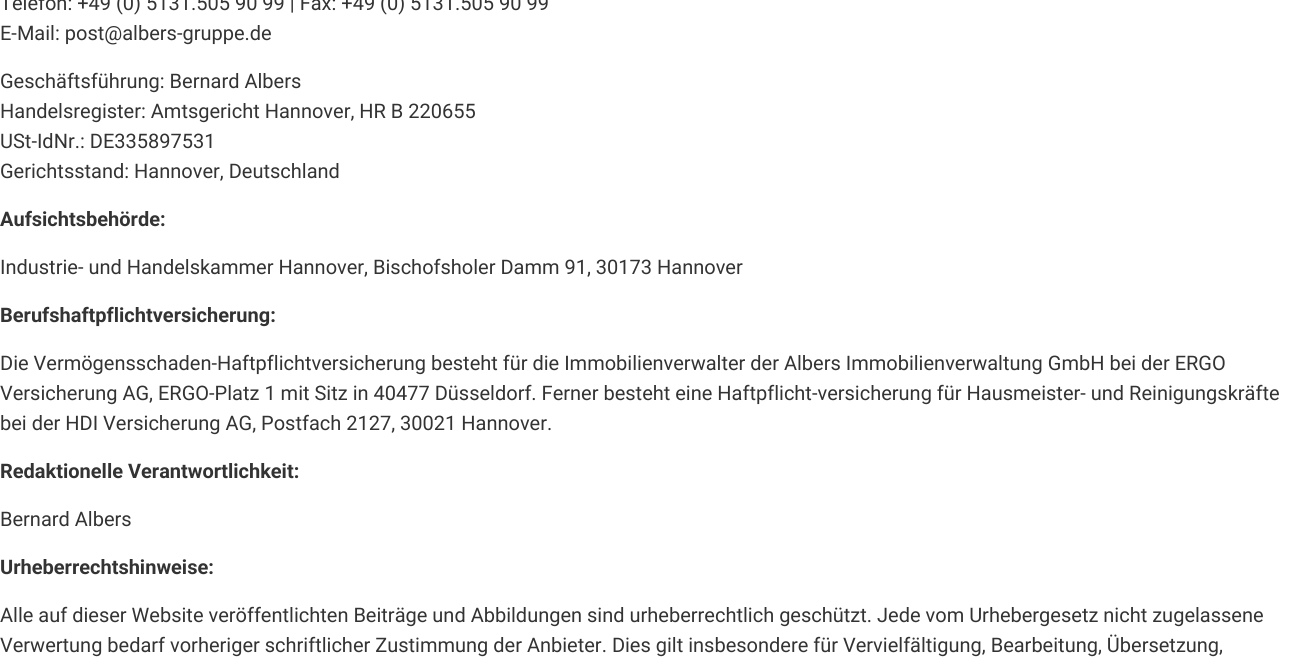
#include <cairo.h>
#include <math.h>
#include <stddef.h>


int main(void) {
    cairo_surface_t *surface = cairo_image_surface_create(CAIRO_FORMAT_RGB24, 1306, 671);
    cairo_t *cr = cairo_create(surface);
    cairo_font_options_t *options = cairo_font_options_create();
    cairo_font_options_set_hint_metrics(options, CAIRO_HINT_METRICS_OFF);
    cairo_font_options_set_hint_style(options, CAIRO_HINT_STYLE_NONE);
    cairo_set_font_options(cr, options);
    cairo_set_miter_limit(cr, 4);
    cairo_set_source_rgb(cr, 1, 1, 1);
    cairo_paint(cr);
    cairo_select_font_face(cr, "Roboto", CAIRO_FONT_SLANT_NORMAL, CAIRO_FONT_WEIGHT_NORMAL);
    cairo_set_font_size(cr, 20);
    cairo_set_source_rgb(cr, 0.2, 0.2, 0.2);
    cairo_move_to(cr, 0, 10);
    cairo_show_text(cr, "Telefon: +49 (0) 5131.505 90 99 | Fax: +49 (0) 5131.505 90 99");
    cairo_move_to(cr, 0, 40);
    cairo_show_text(cr, "E-Mail: post@albers-gruppe.de");
    cairo_move_to(cr, 0, 88);
    cairo_show_text(cr, "Geschäftsführung: Bernard Albers");
    cairo_move_to(cr, 0, 118);
    cairo_show_text(cr, "Handelsregister: Amtsgericht Hannover, HR B 220655");
    cairo_move_to(cr, 0, 148);
    cairo_show_text(cr, "USt-IdNr.: DE335897531");
    cairo_move_to(cr, 0, 178);
    cairo_show_text(cr, "Gerichtsstand: Hannover, Deutschland");
    cairo_select_font_face(cr, "Roboto", CAIRO_FONT_SLANT_NORMAL, CAIRO_FONT_WEIGHT_BOLD);
    cairo_move_to(cr, 0, 226);
    cairo_show_text(cr, "Aufsichtsbehörde:");
    cairo_select_font_face(cr, "Roboto", CAIRO_FONT_SLANT_NORMAL, CAIRO_FONT_WEIGHT_NORMAL);
    cairo_move_to(cr, 0, 274);
    cairo_show_text(cr, "Industrie- und Handelskammer Hannover, Bischofsholer Damm 91, 30173 Hannover");
    cairo_select_font_face(cr, "Roboto", CAIRO_FONT_SLANT_NORMAL, CAIRO_FONT_WEIGHT_BOLD);
    cairo_move_to(cr, 0, 322);
    cairo_show_text(cr, "Berufshaftpflichtversicherung:");
    cairo_select_font_face(cr, "Roboto", CAIRO_FONT_SLANT_NORMAL, CAIRO_FONT_WEIGHT_NORMAL);
    cairo_move_to(cr, 0, 370);
    cairo_show_text(cr, "Die Vermögensschaden-Haftpflichtversicherung besteht für die Immobilienverwalter der Albers Immobilienverwaltung GmbH bei der ERGO");
    cairo_move_to(cr, 0, 400);
    cairo_show_text(cr, "Versicherung AG, ERGO-Platz 1 mit Sitz in 40477 Düsseldorf. Ferner besteht eine Haftpflicht-versicherung für Hausmeister- und Reinigungskräfte");
    cairo_move_to(cr, 0, 430);
    cairo_show_text(cr, "bei der HDI Versicherung AG, Postfach 2127, 30021 Hannover.");
    cairo_select_font_face(cr, "Roboto", CAIRO_FONT_SLANT_NORMAL, CAIRO_FONT_WEIGHT_BOLD);
    cairo_move_to(cr, 0, 478);
    cairo_show_text(cr, "Redaktionelle Verantwortlichkeit:");
    cairo_select_font_face(cr, "Roboto", CAIRO_FONT_SLANT_NORMAL, CAIRO_FONT_WEIGHT_NORMAL);
    cairo_move_to(cr, 0, 526);
    cairo_show_text(cr, "Bernard Albers");
    cairo_select_font_face(cr, "Roboto", CAIRO_FONT_SLANT_NORMAL, CAIRO_FONT_WEIGHT_BOLD);
    cairo_move_to(cr, 0, 574);
    cairo_show_text(cr, "Urheberrechtshinweise:");
    cairo_select_font_face(cr, "Roboto", CAIRO_FONT_SLANT_NORMAL, CAIRO_FONT_WEIGHT_NORMAL);
    cairo_move_to(cr, 0, 622);
    cairo_show_text(cr, "Alle auf dieser Website veröffentlichten Beiträge und Abbildungen sind urheberrechtlich geschützt. Jede vom Urhebergesetz nicht zugelassene");
    cairo_move_to(cr, 0, 652);
    cairo_show_text(cr, "Verwertung bedarf vorheriger schriftlicher Zustimmung der Anbieter. Dies gilt insbesondere für Vervielfältigung, Bearbeitung, Übersetzung,");
    cairo_surface_write_to_png(surface, "page.png");
    cairo_font_options_destroy(options);
    cairo_destroy(cr);
    cairo_surface_destroy(surface);
    return 0;
}
